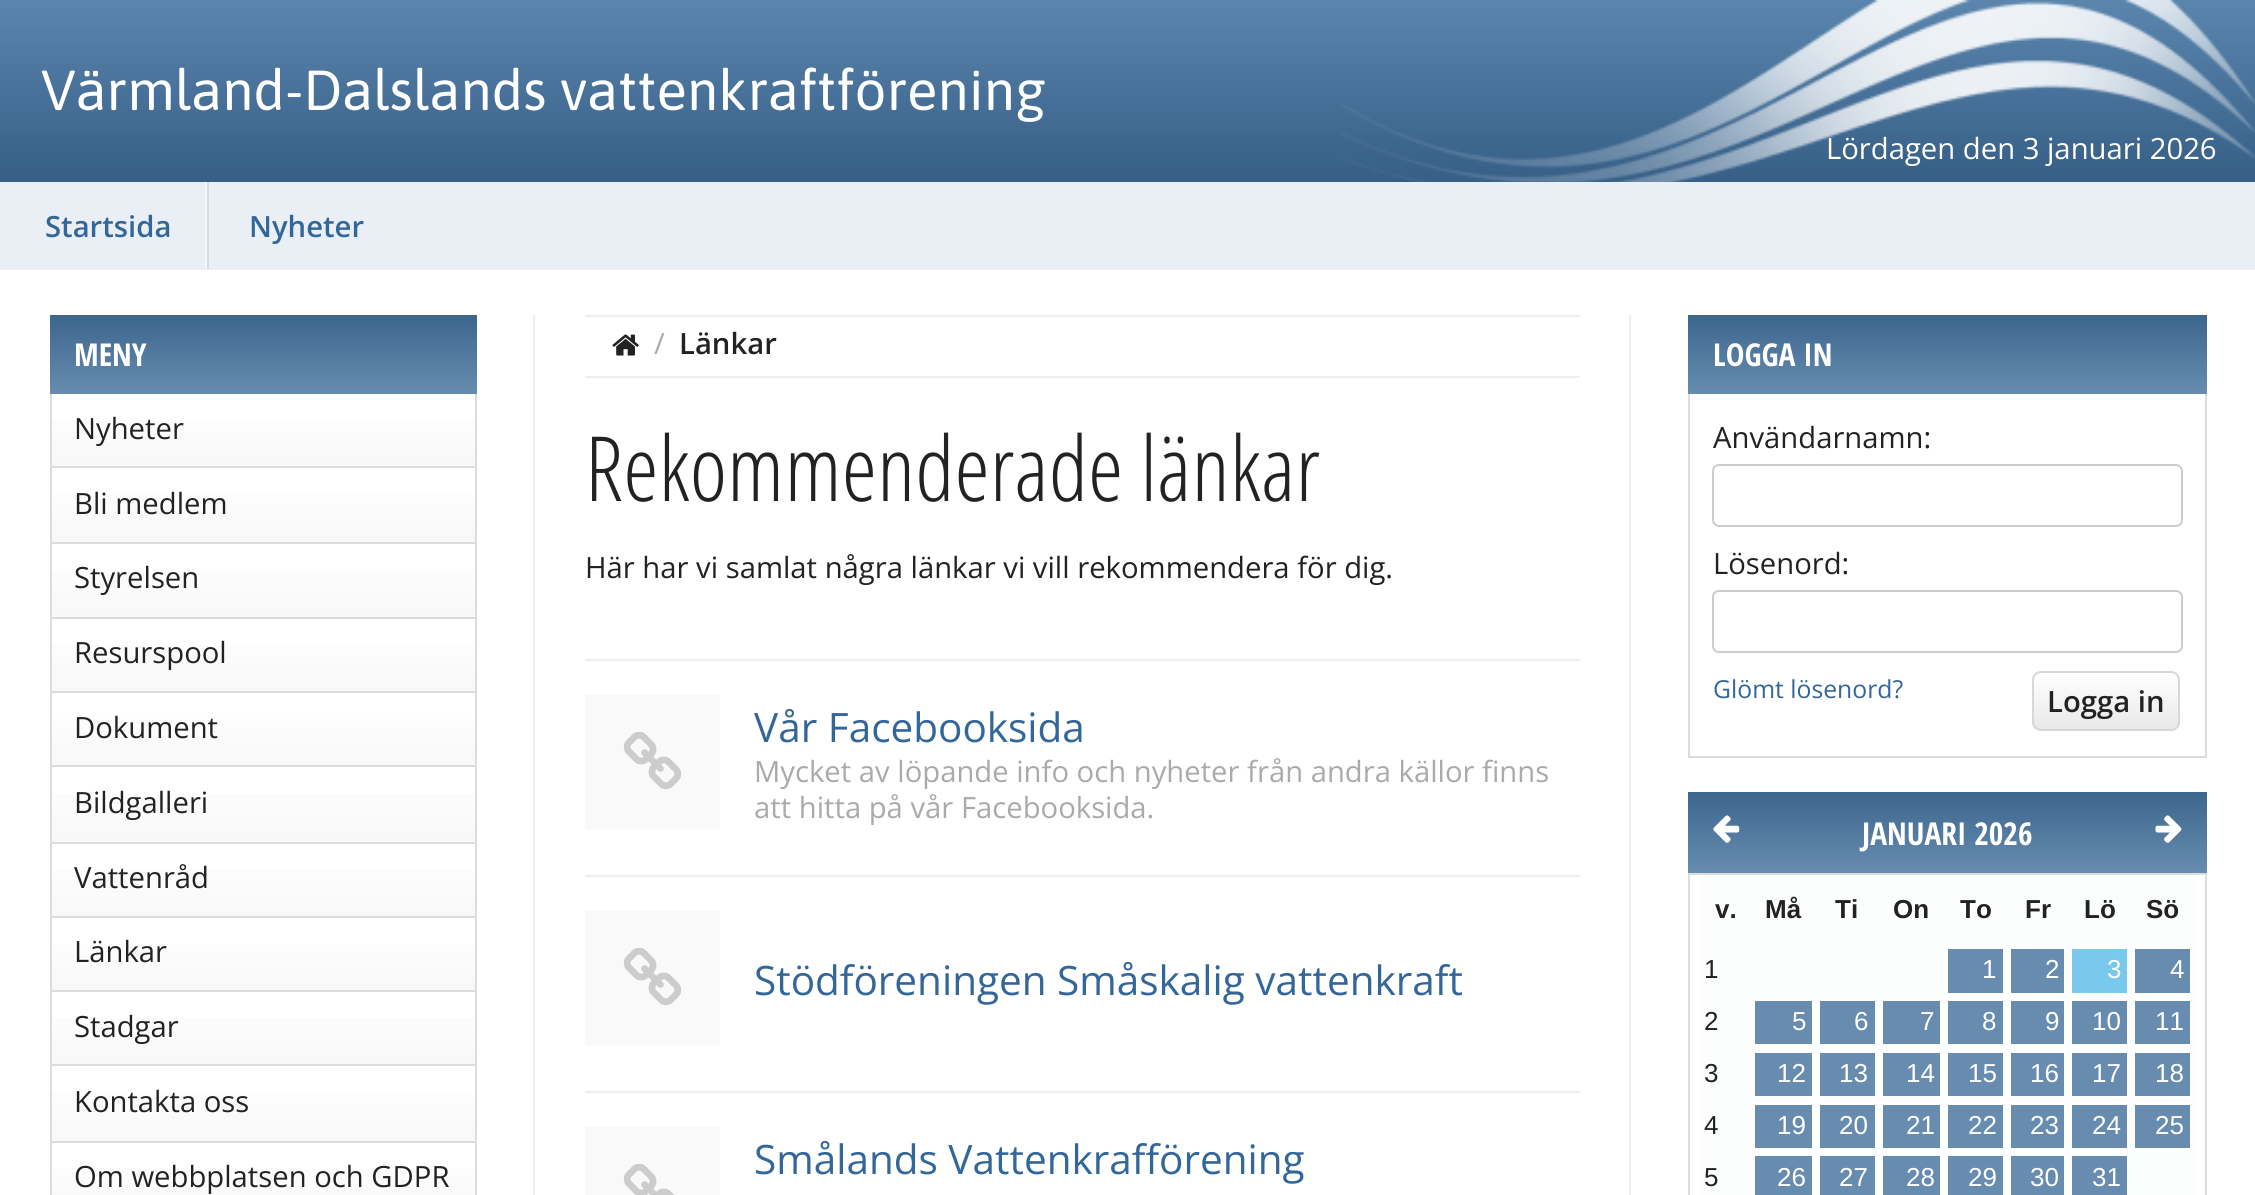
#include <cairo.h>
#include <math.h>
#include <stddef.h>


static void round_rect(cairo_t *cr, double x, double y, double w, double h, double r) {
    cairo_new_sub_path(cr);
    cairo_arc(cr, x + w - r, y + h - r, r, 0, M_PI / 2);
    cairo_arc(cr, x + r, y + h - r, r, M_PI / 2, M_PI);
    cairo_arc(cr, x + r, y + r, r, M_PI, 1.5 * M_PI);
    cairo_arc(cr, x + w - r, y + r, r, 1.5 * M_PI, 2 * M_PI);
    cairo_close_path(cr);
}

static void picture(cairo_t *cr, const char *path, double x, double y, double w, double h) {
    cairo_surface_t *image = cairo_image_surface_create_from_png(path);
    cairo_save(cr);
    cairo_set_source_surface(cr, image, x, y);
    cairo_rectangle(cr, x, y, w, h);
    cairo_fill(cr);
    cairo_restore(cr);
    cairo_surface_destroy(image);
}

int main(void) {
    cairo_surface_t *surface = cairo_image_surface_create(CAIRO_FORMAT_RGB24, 2255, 1195);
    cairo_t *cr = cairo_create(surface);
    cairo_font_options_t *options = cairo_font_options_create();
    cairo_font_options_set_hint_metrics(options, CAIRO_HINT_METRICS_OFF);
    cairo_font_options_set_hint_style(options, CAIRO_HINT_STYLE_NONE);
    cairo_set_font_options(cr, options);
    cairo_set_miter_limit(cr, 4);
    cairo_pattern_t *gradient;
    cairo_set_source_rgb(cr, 1, 1, 1);
    cairo_paint(cr);
    gradient = cairo_pattern_create_linear(1128, 0, 1128, 270);
    cairo_pattern_add_color_stop_rgba(gradient, 0, 0.353, 0.522, 0.675, 1);
    cairo_pattern_add_color_stop_rgba(gradient, 1, 0.145, 0.298, 0.455, 1);
    cairo_set_source(cr, gradient);
    cairo_pattern_destroy(gradient);
    cairo_rectangle(cr, 0, 0, 2255, 182);
    cairo_fill(cr);
    picture(cr, "img1.png", 1341, 0, 914, 182);
    cairo_select_font_face(cr, "Asap", CAIRO_FONT_SLANT_NORMAL, CAIRO_FONT_WEIGHT_NORMAL);
    cairo_set_font_size(cr, 56.25);
    cairo_set_source_rgb(cr, 1, 1, 1);
    cairo_move_to(cr, 41, 110);
    cairo_show_text(cr, "Värmland-Dalslands vattenkraftförening");
    cairo_select_font_face(cr, "Open Sans", CAIRO_FONT_SLANT_NORMAL, CAIRO_FONT_WEIGHT_NORMAL);
    cairo_set_font_size(cr, 29.25);
    cairo_move_to(cr, 1826, 159);
    cairo_show_text(cr, "Lördagen den 3 januari 2026");
    cairo_set_source_rgb(cr, 0.914, 0.937, 0.957);
    cairo_rectangle(cr, 0, 182, 2255, 88);
    cairo_fill(cr);
    cairo_set_source_rgb(cr, 0.851, 0.859, 0.863);
    cairo_new_path(cr);
    cairo_move_to(cr, 14, 182);
    cairo_line_to(cr, 207, 182);
    cairo_line_to(cr, 207, 270);
    cairo_line_to(cr, 209, 270);
    cairo_line_to(cr, 209, 182);
    cairo_close_path(cr);
    cairo_fill(cr);
    cairo_set_source_rgb(cr, 0.945, 0.965, 0.98);
    cairo_rectangle(cr, 205, 182, 2, 88);
    cairo_fill(cr);
    cairo_select_font_face(cr, "Open Sans SemiBold", CAIRO_FONT_SLANT_NORMAL, CAIRO_FONT_WEIGHT_NORMAL);
    cairo_set_source_rgb(cr, 0.2, 0.4, 0.6);
    cairo_move_to(cr, 45, 237);
    cairo_show_text(cr, "Startsida");
    cairo_move_to(cr, 249, 237);
    cairo_show_text(cr, "Nyheter");
    gradient = cairo_pattern_create_linear(263, 315, 263, 394);
    cairo_pattern_add_color_stop_rgba(gradient, 0, 0.239, 0.4, 0.553, 1);
    cairo_pattern_add_color_stop_rgba(gradient, 1, 0.404, 0.549, 0.69, 1);
    cairo_set_source(cr, gradient);
    cairo_pattern_destroy(gradient);
    cairo_rectangle(cr, 50, 315, 427, 79);
    cairo_fill(cr);
    cairo_select_font_face(cr, "Open Sans Condensed", CAIRO_FONT_SLANT_NORMAL, CAIRO_FONT_WEIGHT_BOLD);
    cairo_set_font_size(cr, 31.5);
    cairo_set_source_rgb(cr, 1, 1, 1);
    cairo_move_to(cr, 74, 366);
    cairo_show_text(cr, "MENY");
    cairo_set_source_rgb(cr, 0.863, 0.863, 0.863);
    cairo_rectangle(cr, 475, 394, 2, 801);
    cairo_fill(cr);
    cairo_rectangle(cr, 50, 394, 2, 801);
    cairo_fill(cr);
    gradient = cairo_pattern_create_linear(263, 394, 263, 466);
    cairo_pattern_add_color_stop_rgba(gradient, 0, 1, 1, 1, 1);
    cairo_pattern_add_color_stop_rgba(gradient, 1, 0.973, 0.973, 0.973, 1);
    cairo_set_source(cr, gradient);
    cairo_pattern_destroy(gradient);
    cairo_rectangle(cr, 52, 420, 423, 46);
    cairo_fill(cr);
    cairo_set_source_rgb(cr, 0.863, 0.863, 0.863);
    cairo_rectangle(cr, 52, 466, 423, 2);
    cairo_fill(cr);
    cairo_select_font_face(cr, "Open Sans", CAIRO_FONT_SLANT_NORMAL, CAIRO_FONT_WEIGHT_NORMAL);
    cairo_set_font_size(cr, 29.25);
    cairo_set_source_rgb(cr, 0.133, 0.133, 0.133);
    cairo_move_to(cr, 74, 439);
    cairo_show_text(cr, "Nyheter");
    gradient = cairo_pattern_create_linear(263, 468, 263, 542);
    cairo_pattern_add_color_stop_rgba(gradient, 0, 1, 1, 1, 1);
    cairo_pattern_add_color_stop_rgba(gradient, 1, 0.973, 0.973, 0.973, 1);
    cairo_set_source(cr, gradient);
    cairo_pattern_destroy(gradient);
    cairo_rectangle(cr, 52, 494, 423, 48);
    cairo_fill(cr);
    cairo_set_source_rgb(cr, 0.863, 0.863, 0.863);
    cairo_rectangle(cr, 52, 542, 423, 2);
    cairo_fill(cr);
    cairo_set_source_rgb(cr, 0.133, 0.133, 0.133);
    cairo_move_to(cr, 74, 514);
    cairo_show_text(cr, "Bli medlem");
    gradient = cairo_pattern_create_linear(263, 545, 263, 617);
    cairo_pattern_add_color_stop_rgba(gradient, 0, 1, 1, 1, 1);
    cairo_pattern_add_color_stop_rgba(gradient, 1, 0.973, 0.973, 0.973, 1);
    cairo_set_source(cr, gradient);
    cairo_pattern_destroy(gradient);
    cairo_rectangle(cr, 52, 571, 423, 46);
    cairo_fill(cr);
    cairo_set_source_rgb(cr, 0.863, 0.863, 0.863);
    cairo_rectangle(cr, 52, 617, 423, 2);
    cairo_fill(cr);
    cairo_set_source_rgb(cr, 0.133, 0.133, 0.133);
    cairo_move_to(cr, 74, 588);
    cairo_show_text(cr, "Styrelsen");
    gradient = cairo_pattern_create_linear(263, 619, 263, 691);
    cairo_pattern_add_color_stop_rgba(gradient, 0, 1, 1, 1, 1);
    cairo_pattern_add_color_stop_rgba(gradient, 1, 0.973, 0.973, 0.973, 1);
    cairo_set_source(cr, gradient);
    cairo_pattern_destroy(gradient);
    cairo_rectangle(cr, 52, 645, 423, 46);
    cairo_fill(cr);
    cairo_set_source_rgb(cr, 0.863, 0.863, 0.863);
    cairo_rectangle(cr, 52, 691, 423, 2);
    cairo_fill(cr);
    cairo_set_source_rgb(cr, 0.133, 0.133, 0.133);
    cairo_move_to(cr, 74, 663);
    cairo_show_text(cr, "Resurspool");
    gradient = cairo_pattern_create_linear(263, 693, 263, 765);
    cairo_pattern_add_color_stop_rgba(gradient, 0, 1, 1, 1, 1);
    cairo_pattern_add_color_stop_rgba(gradient, 1, 0.973, 0.973, 0.973, 1);
    cairo_set_source(cr, gradient);
    cairo_pattern_destroy(gradient);
    cairo_rectangle(cr, 52, 719, 423, 46);
    cairo_fill(cr);
    cairo_set_source_rgb(cr, 0.863, 0.863, 0.863);
    cairo_rectangle(cr, 52, 765, 423, 2);
    cairo_fill(cr);
    cairo_set_source_rgb(cr, 0.133, 0.133, 0.133);
    cairo_move_to(cr, 74, 738);
    cairo_show_text(cr, "Dokument");
    gradient = cairo_pattern_create_linear(263, 767, 263, 842);
    cairo_pattern_add_color_stop_rgba(gradient, 0, 1, 1, 1, 1);
    cairo_pattern_add_color_stop_rgba(gradient, 1, 0.973, 0.973, 0.973, 1);
    cairo_set_source(cr, gradient);
    cairo_pattern_destroy(gradient);
    cairo_rectangle(cr, 52, 794, 423, 48);
    cairo_fill(cr);
    cairo_set_source_rgb(cr, 0.863, 0.863, 0.863);
    cairo_rectangle(cr, 52, 842, 423, 2);
    cairo_fill(cr);
    cairo_set_source_rgb(cr, 0.133, 0.133, 0.133);
    cairo_move_to(cr, 74, 813);
    cairo_show_text(cr, "Bildgalleri");
    gradient = cairo_pattern_create_linear(263, 844, 263, 916);
    cairo_pattern_add_color_stop_rgba(gradient, 0, 1, 1, 1, 1);
    cairo_pattern_add_color_stop_rgba(gradient, 1, 0.973, 0.973, 0.973, 1);
    cairo_set_source(cr, gradient);
    cairo_pattern_destroy(gradient);
    cairo_rectangle(cr, 52, 870, 423, 46);
    cairo_fill(cr);
    cairo_set_source_rgb(cr, 0.863, 0.863, 0.863);
    cairo_rectangle(cr, 52, 916, 423, 2);
    cairo_fill(cr);
    cairo_set_source_rgb(cr, 0.133, 0.133, 0.133);
    cairo_move_to(cr, 74, 888);
    cairo_show_text(cr, "Vattenråd");
    gradient = cairo_pattern_create_linear(263, 918, 263, 990);
    cairo_pattern_add_color_stop_rgba(gradient, 0, 1, 1, 1, 1);
    cairo_pattern_add_color_stop_rgba(gradient, 1, 0.973, 0.973, 0.973, 1);
    cairo_set_source(cr, gradient);
    cairo_pattern_destroy(gradient);
    cairo_rectangle(cr, 52, 944, 423, 46);
    cairo_fill(cr);
    cairo_set_source_rgb(cr, 0.863, 0.863, 0.863);
    cairo_rectangle(cr, 52, 990, 423, 2);
    cairo_fill(cr);
    cairo_set_source_rgb(cr, 0.133, 0.133, 0.133);
    cairo_move_to(cr, 74, 962);
    cairo_show_text(cr, "Länkar");
    gradient = cairo_pattern_create_linear(263, 992, 263, 1064);
    cairo_pattern_add_color_stop_rgba(gradient, 0, 1, 1, 1, 1);
    cairo_pattern_add_color_stop_rgba(gradient, 1, 0.973, 0.973, 0.973, 1);
    cairo_set_source(cr, gradient);
    cairo_pattern_destroy(gradient);
    cairo_rectangle(cr, 52, 1018, 423, 46);
    cairo_fill(cr);
    cairo_set_source_rgb(cr, 0.863, 0.863, 0.863);
    cairo_rectangle(cr, 52, 1064, 423, 2);
    cairo_fill(cr);
    cairo_set_source_rgb(cr, 0.133, 0.133, 0.133);
    cairo_move_to(cr, 74, 1037);
    cairo_show_text(cr, "Stadgar");
    gradient = cairo_pattern_create_linear(263, 1067, 263, 1141);
    cairo_pattern_add_color_stop_rgba(gradient, 0, 1, 1, 1, 1);
    cairo_pattern_add_color_stop_rgba(gradient, 1, 0.973, 0.973, 0.973, 1);
    cairo_set_source(cr, gradient);
    cairo_pattern_destroy(gradient);
    cairo_rectangle(cr, 52, 1093, 423, 48);
    cairo_fill(cr);
    cairo_set_source_rgb(cr, 0.863, 0.863, 0.863);
    cairo_rectangle(cr, 52, 1141, 423, 2);
    cairo_fill(cr);
    cairo_set_source_rgb(cr, 0.133, 0.133, 0.133);
    cairo_move_to(cr, 74, 1112);
    cairo_show_text(cr, "Kontakta oss");
    gradient = cairo_pattern_create_linear(263, 1143, 263, 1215);
    cairo_pattern_add_color_stop_rgba(gradient, 0, 1, 1, 1, 1);
    cairo_pattern_add_color_stop_rgba(gradient, 1, 0.973, 0.973, 0.973, 1);
    cairo_set_source(cr, gradient);
    cairo_pattern_destroy(gradient);
    cairo_rectangle(cr, 52, 1169, 423, 26);
    cairo_fill(cr);
    cairo_set_source_rgb(cr, 0.133, 0.133, 0.133);
    cairo_move_to(cr, 74, 1187);
    cairo_show_text(cr, "Om webbplatsen och GDPR");
    cairo_set_source_rgb(cr, 0.933, 0.933, 0.933);
    cairo_rectangle(cr, 1629, 315, 2, 880);
    cairo_fill(cr);
    cairo_rectangle(cr, 533, 315, 2, 880);
    cairo_fill(cr);
    cairo_rectangle(cr, 585, 315, 995, 2);
    cairo_fill(cr);
    cairo_rectangle(cr, 585, 376, 995, 2);
    cairo_fill(cr);
    picture(cr, "img2.png", 612, 334, 27, 22);
    cairo_set_source_rgb(cr, 0.667, 0.667, 0.667);
    cairo_move_to(cr, 654, 354);
    cairo_show_text(cr, "/");
    cairo_select_font_face(cr, "Open Sans SemiBold", CAIRO_FONT_SLANT_NORMAL, CAIRO_FONT_WEIGHT_NORMAL);
    cairo_set_source_rgb(cr, 0.133, 0.133, 0.133);
    cairo_move_to(cr, 679, 354);
    cairo_show_text(cr, "Länkar");
    cairo_select_font_face(cr, "Open Sans Condensed Light", CAIRO_FONT_SLANT_NORMAL, CAIRO_FONT_WEIGHT_NORMAL);
    cairo_set_font_size(cr, 90);
    cairo_move_to(cr, 585, 501);
    cairo_show_text(cr, "Rekommenderade länkar");
    cairo_select_font_face(cr, "Open Sans", CAIRO_FONT_SLANT_NORMAL, CAIRO_FONT_WEIGHT_NORMAL);
    cairo_set_font_size(cr, 29.25);
    cairo_move_to(cr, 585, 578);
    cairo_show_text(cr, "Här har vi samlat några länkar vi vill rekommendera för dig.");
    cairo_set_source_rgb(cr, 0.933, 0.933, 0.933);
    cairo_rectangle(cr, 585, 659, 995, 2);
    cairo_fill(cr);
    cairo_set_source_rgb(cr, 0.973, 0.973, 0.973);
    cairo_rectangle(cr, 585, 695, 135, 135);
    cairo_fill(cr);
    picture(cr, "img3.png", 623, 731, 59, 59);
    cairo_set_font_size(cr, 40.5);
    cairo_set_source_rgb(cr, 0.2, 0.4, 0.6);
    cairo_move_to(cr, 754, 742);
    cairo_show_text(cr, "Vår Facebooksida");
    cairo_set_font_size(cr, 29.25);
    cairo_set_source_rgb(cr, 0.667, 0.667, 0.667);
    cairo_move_to(cr, 754, 782);
    cairo_show_text(cr, "Mycket av löpande info och nyheter från andra källor finns");
    cairo_move_to(cr, 754, 818);
    cairo_show_text(cr, "att hitta på vår Facebooksida.");
    cairo_set_source_rgb(cr, 0.933, 0.933, 0.933);
    cairo_rectangle(cr, 585, 875, 995, 2);
    cairo_fill(cr);
    cairo_set_source_rgb(cr, 0.973, 0.973, 0.973);
    cairo_rectangle(cr, 585, 911, 135, 135);
    cairo_fill(cr);
    picture(cr, "img3.png", 623, 947, 59, 59);
    cairo_set_font_size(cr, 40.5);
    cairo_set_source_rgb(cr, 0.2, 0.4, 0.6);
    cairo_move_to(cr, 754, 995);
    cairo_show_text(cr, "Stödföreningen Småskalig vattenkraft");
    cairo_set_source_rgb(cr, 0.933, 0.933, 0.933);
    cairo_rectangle(cr, 585, 1091, 995, 2);
    cairo_fill(cr);
    cairo_set_source_rgb(cr, 0.973, 0.973, 0.973);
    cairo_rectangle(cr, 585, 1127, 135, 68);
    cairo_fill(cr);
    picture(cr, "img4.png", 623, 1163, 51, 32);
    cairo_set_source_rgb(cr, 0.2, 0.4, 0.6);
    cairo_move_to(cr, 754, 1174);
    cairo_show_text(cr, "Smålands Vattenkrafförening");
    gradient = cairo_pattern_create_linear(1947, 315, 1947, 394);
    cairo_pattern_add_color_stop_rgba(gradient, 0, 0.239, 0.4, 0.553, 1);
    cairo_pattern_add_color_stop_rgba(gradient, 1, 0.404, 0.549, 0.69, 1);
    cairo_set_source(cr, gradient);
    cairo_pattern_destroy(gradient);
    cairo_rectangle(cr, 1688, 315, 519, 79);
    cairo_fill(cr);
    cairo_select_font_face(cr, "Open Sans Condensed", CAIRO_FONT_SLANT_NORMAL, CAIRO_FONT_WEIGHT_BOLD);
    cairo_set_font_size(cr, 31.5);
    cairo_set_source_rgb(cr, 1, 1, 1);
    cairo_move_to(cr, 1713, 366);
    cairo_show_text(cr, "LOGGA IN");
    cairo_set_source_rgb(cr, 0.863, 0.863, 0.863);
    cairo_rectangle(cr, 2205, 394, 2, 364);
    cairo_fill(cr);
    cairo_rectangle(cr, 1688, 756, 519, 2);
    cairo_fill(cr);
    cairo_rectangle(cr, 1688, 394, 2, 364);
    cairo_fill(cr);
    cairo_select_font_face(cr, "Open Sans", CAIRO_FONT_SLANT_NORMAL, CAIRO_FONT_WEIGHT_NORMAL);
    cairo_set_font_size(cr, 29.25);
    cairo_set_source_rgb(cr, 0.133, 0.133, 0.133);
    cairo_move_to(cr, 1713, 448);
    cairo_show_text(cr, "Användarnamn:");
    round_rect(cr, 1713, 465, 469, 61, 6);
    cairo_set_source_rgb(cr, 0.8, 0.8, 0.8);
    cairo_stroke(cr);
    cairo_set_source_rgb(cr, 0.133, 0.133, 0.133);
    cairo_move_to(cr, 1713, 574);
    cairo_show_text(cr, "Lösenord:");
    round_rect(cr, 1713, 591, 469, 61, 6);
    cairo_set_source_rgb(cr, 0.8, 0.8, 0.8);
    cairo_stroke(cr);
    cairo_set_font_size(cr, 24.75);
    cairo_set_source_rgb(cr, 0.2, 0.4, 0.6);
    cairo_move_to(cr, 1713, 698);
    cairo_show_text(cr, "Glömt lösenord?");
    cairo_save(cr);
    round_rect(cr, 2032, 671, 148, 60, 9);
    cairo_clip(cr);
    gradient = cairo_pattern_create_linear(2106, 673, 2106, 729);
    cairo_pattern_add_color_stop_rgba(gradient, 0, 1, 1, 1, 1);
    cairo_pattern_add_color_stop_rgba(gradient, 1, 0.914, 0.914, 0.914, 1);
    cairo_set_source(cr, gradient);
    cairo_pattern_destroy(gradient);
    cairo_rectangle(cr, 2032, 673, 148, 56);
    cairo_fill(cr);
    cairo_restore(cr);
    round_rect(cr, 2033, 672, 146, 58, 8);
    cairo_set_source_rgb(cr, 0.843, 0.843, 0.843);
    cairo_stroke(cr);
    cairo_select_font_face(cr, "Open Sans SemiBold", CAIRO_FONT_SLANT_NORMAL, CAIRO_FONT_WEIGHT_NORMAL);
    cairo_set_font_size(cr, 29.25);
    cairo_set_source_rgb(cr, 0.133, 0.133, 0.133);
    cairo_move_to(cr, 2047, 712);
    cairo_show_text(cr, "Logga in");
    gradient = cairo_pattern_create_linear(1947, 792, 1947, 873);
    cairo_pattern_add_color_stop_rgba(gradient, 0, 0.239, 0.4, 0.553, 1);
    cairo_pattern_add_color_stop_rgba(gradient, 1, 0.404, 0.549, 0.69, 1);
    cairo_set_source(cr, gradient);
    cairo_pattern_destroy(gradient);
    cairo_rectangle(cr, 1688, 792, 519, 81);
    cairo_fill(cr);
    picture(cr, "img5.png", 1713, 815, 27, 28);
    cairo_select_font_face(cr, "Open Sans Condensed", CAIRO_FONT_SLANT_NORMAL, CAIRO_FONT_WEIGHT_BOLD);
    cairo_set_font_size(cr, 31.5);
    cairo_set_source_rgb(cr, 1, 1, 1);
    cairo_move_to(cr, 1862, 845);
    cairo_show_text(cr, "JANUARI 2026");
    picture(cr, "img6.png", 2155, 815, 27, 28);
    cairo_rectangle(cr, 1689, 874, 517, 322);
    cairo_set_source_rgb(cr, 0.863, 0.863, 0.863);
    cairo_stroke(cr);
    cairo_set_source_rgb(cr, 0.988, 0.992, 0.992);
    round_rect(cr, 1701, 875, 493, 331, 11);
    cairo_fill(cr);
    cairo_select_font_face(cr, "Liberation Sans", CAIRO_FONT_SLANT_NORMAL, CAIRO_FONT_WEIGHT_BOLD);
    cairo_set_font_size(cr, 26);
    cairo_set_source_rgb(cr, 0.133, 0.133, 0.133);
    cairo_move_to(cr, 1715, 918);
    cairo_show_text(cr, "v.");
    cairo_move_to(cr, 1765, 918);
    cairo_show_text(cr, "Må");
    cairo_move_to(cr, 1835, 918);
    cairo_show_text(cr, "Ti");
    cairo_move_to(cr, 1893, 918);
    cairo_show_text(cr, "On");
    cairo_move_to(cr, 1960, 918);
    cairo_show_text(cr, "To");
    cairo_move_to(cr, 2025, 918);
    cairo_show_text(cr, "Fr");
    cairo_move_to(cr, 2084, 918);
    cairo_show_text(cr, "Lö");
    cairo_move_to(cr, 2146, 918);
    cairo_show_text(cr, "Sö");
    cairo_select_font_face(cr, "Liberation Sans", CAIRO_FONT_SLANT_NORMAL, CAIRO_FONT_WEIGHT_NORMAL);
    cairo_move_to(cr, 1704, 978);
    cairo_show_text(cr, "1");
    cairo_set_source_rgb(cr, 0.404, 0.549, 0.69);
    cairo_rectangle(cr, 1947, 948, 57, 46);
    cairo_fill_preserve(cr);
    cairo_set_source_rgb(cr, 1, 1, 1);
    cairo_stroke(cr);
    cairo_move_to(cr, 1982, 978);
    cairo_show_text(cr, "1");
    cairo_set_source_rgb(cr, 0.404, 0.549, 0.69);
    cairo_rectangle(cr, 2010, 948, 55, 46);
    cairo_fill_preserve(cr);
    cairo_set_source_rgb(cr, 1, 1, 1);
    cairo_stroke(cr);
    cairo_move_to(cr, 2045, 978);
    cairo_show_text(cr, "2");
    cairo_set_source_rgb(cr, 0.475, 0.788, 0.925);
    cairo_rectangle(cr, 2071, 948, 57, 46);
    cairo_fill_preserve(cr);
    cairo_set_source_rgb(cr, 1, 1, 1);
    cairo_stroke(cr);
    cairo_move_to(cr, 2107, 978);
    cairo_show_text(cr, "3");
    cairo_set_source_rgb(cr, 0.404, 0.549, 0.69);
    cairo_rectangle(cr, 2134, 948, 57, 46);
    cairo_fill_preserve(cr);
    cairo_set_source_rgb(cr, 1, 1, 1);
    cairo_stroke(cr);
    cairo_move_to(cr, 2170, 978);
    cairo_show_text(cr, "4");
    cairo_set_source_rgb(cr, 0.133, 0.133, 0.133);
    cairo_move_to(cr, 1704, 1030);
    cairo_show_text(cr, "2");
    cairo_set_source_rgb(cr, 0.404, 0.549, 0.69);
    cairo_rectangle(cr, 1754, 1000, 59, 45);
    cairo_fill_preserve(cr);
    cairo_set_source_rgb(cr, 1, 1, 1);
    cairo_stroke(cr);
    cairo_move_to(cr, 1792, 1030);
    cairo_show_text(cr, "5");
    cairo_set_source_rgb(cr, 0.404, 0.549, 0.69);
    cairo_rectangle(cr, 1819, 1000, 57, 45);
    cairo_fill_preserve(cr);
    cairo_set_source_rgb(cr, 1, 1, 1);
    cairo_stroke(cr);
    cairo_move_to(cr, 1854, 1030);
    cairo_show_text(cr, "6");
    cairo_set_source_rgb(cr, 0.404, 0.549, 0.69);
    cairo_rectangle(cr, 1882, 1000, 59, 45);
    cairo_fill_preserve(cr);
    cairo_set_source_rgb(cr, 1, 1, 1);
    cairo_stroke(cr);
    cairo_move_to(cr, 1920, 1030);
    cairo_show_text(cr, "7");
    cairo_set_source_rgb(cr, 0.404, 0.549, 0.69);
    cairo_rectangle(cr, 1947, 1000, 57, 45);
    cairo_fill_preserve(cr);
    cairo_set_source_rgb(cr, 1, 1, 1);
    cairo_stroke(cr);
    cairo_move_to(cr, 1982, 1030);
    cairo_show_text(cr, "8");
    cairo_set_source_rgb(cr, 0.404, 0.549, 0.69);
    cairo_rectangle(cr, 2010, 1000, 55, 45);
    cairo_fill_preserve(cr);
    cairo_set_source_rgb(cr, 1, 1, 1);
    cairo_stroke(cr);
    cairo_move_to(cr, 2045, 1030);
    cairo_show_text(cr, "9");
    cairo_set_source_rgb(cr, 0.404, 0.549, 0.69);
    cairo_rectangle(cr, 2071, 1000, 57, 45);
    cairo_fill_preserve(cr);
    cairo_set_source_rgb(cr, 1, 1, 1);
    cairo_stroke(cr);
    cairo_move_to(cr, 2092, 1030);
    cairo_show_text(cr, "10");
    cairo_set_source_rgb(cr, 0.404, 0.549, 0.69);
    cairo_rectangle(cr, 2134, 1000, 57, 45);
    cairo_fill_preserve(cr);
    cairo_set_source_rgb(cr, 1, 1, 1);
    cairo_stroke(cr);
    cairo_move_to(cr, 2155, 1030);
    cairo_show_text(cr, "11");
    cairo_set_source_rgb(cr, 0.133, 0.133, 0.133);
    cairo_move_to(cr, 1704, 1082);
    cairo_show_text(cr, "3");
    cairo_set_source_rgb(cr, 0.404, 0.549, 0.69);
    cairo_rectangle(cr, 1754, 1052, 59, 45);
    cairo_fill_preserve(cr);
    cairo_set_source_rgb(cr, 1, 1, 1);
    cairo_stroke(cr);
    cairo_move_to(cr, 1777, 1082);
    cairo_show_text(cr, "12");
    cairo_set_source_rgb(cr, 0.404, 0.549, 0.69);
    cairo_rectangle(cr, 1819, 1052, 57, 45);
    cairo_fill_preserve(cr);
    cairo_set_source_rgb(cr, 1, 1, 1);
    cairo_stroke(cr);
    cairo_move_to(cr, 1839, 1082);
    cairo_show_text(cr, "13");
    cairo_set_source_rgb(cr, 0.404, 0.549, 0.69);
    cairo_rectangle(cr, 1882, 1052, 59, 45);
    cairo_fill_preserve(cr);
    cairo_set_source_rgb(cr, 1, 1, 1);
    cairo_stroke(cr);
    cairo_move_to(cr, 1906, 1082);
    cairo_show_text(cr, "14");
    cairo_set_source_rgb(cr, 0.404, 0.549, 0.69);
    cairo_rectangle(cr, 1947, 1052, 57, 45);
    cairo_fill_preserve(cr);
    cairo_set_source_rgb(cr, 1, 1, 1);
    cairo_stroke(cr);
    cairo_move_to(cr, 1968, 1082);
    cairo_show_text(cr, "15");
    cairo_set_source_rgb(cr, 0.404, 0.549, 0.69);
    cairo_rectangle(cr, 2010, 1052, 55, 45);
    cairo_fill_preserve(cr);
    cairo_set_source_rgb(cr, 1, 1, 1);
    cairo_stroke(cr);
    cairo_move_to(cr, 2030, 1082);
    cairo_show_text(cr, "16");
    cairo_set_source_rgb(cr, 0.404, 0.549, 0.69);
    cairo_rectangle(cr, 2071, 1052, 57, 45);
    cairo_fill_preserve(cr);
    cairo_set_source_rgb(cr, 1, 1, 1);
    cairo_stroke(cr);
    cairo_move_to(cr, 2092, 1082);
    cairo_show_text(cr, "17");
    cairo_set_source_rgb(cr, 0.404, 0.549, 0.69);
    cairo_rectangle(cr, 2134, 1052, 57, 45);
    cairo_fill_preserve(cr);
    cairo_set_source_rgb(cr, 1, 1, 1);
    cairo_stroke(cr);
    cairo_move_to(cr, 2155, 1082);
    cairo_show_text(cr, "18");
    cairo_set_source_rgb(cr, 0.133, 0.133, 0.133);
    cairo_move_to(cr, 1704, 1134);
    cairo_show_text(cr, "4");
    cairo_set_source_rgb(cr, 0.404, 0.549, 0.69);
    cairo_rectangle(cr, 1754, 1104, 59, 45);
    cairo_fill_preserve(cr);
    cairo_set_source_rgb(cr, 1, 1, 1);
    cairo_stroke(cr);
    cairo_move_to(cr, 1777, 1134);
    cairo_show_text(cr, "19");
    cairo_set_source_rgb(cr, 0.404, 0.549, 0.69);
    cairo_rectangle(cr, 1819, 1104, 57, 45);
    cairo_fill_preserve(cr);
    cairo_set_source_rgb(cr, 1, 1, 1);
    cairo_stroke(cr);
    cairo_move_to(cr, 1839, 1134);
    cairo_show_text(cr, "20");
    cairo_set_source_rgb(cr, 0.404, 0.549, 0.69);
    cairo_rectangle(cr, 1882, 1104, 59, 45);
    cairo_fill_preserve(cr);
    cairo_set_source_rgb(cr, 1, 1, 1);
    cairo_stroke(cr);
    cairo_move_to(cr, 1906, 1134);
    cairo_show_text(cr, "21");
    cairo_set_source_rgb(cr, 0.404, 0.549, 0.69);
    cairo_rectangle(cr, 1947, 1104, 57, 45);
    cairo_fill_preserve(cr);
    cairo_set_source_rgb(cr, 1, 1, 1);
    cairo_stroke(cr);
    cairo_move_to(cr, 1968, 1134);
    cairo_show_text(cr, "22");
    cairo_set_source_rgb(cr, 0.404, 0.549, 0.69);
    cairo_rectangle(cr, 2010, 1104, 55, 45);
    cairo_fill_preserve(cr);
    cairo_set_source_rgb(cr, 1, 1, 1);
    cairo_stroke(cr);
    cairo_move_to(cr, 2030, 1134);
    cairo_show_text(cr, "23");
    cairo_set_source_rgb(cr, 0.404, 0.549, 0.69);
    cairo_rectangle(cr, 2071, 1104, 57, 45);
    cairo_fill_preserve(cr);
    cairo_set_source_rgb(cr, 1, 1, 1);
    cairo_stroke(cr);
    cairo_move_to(cr, 2092, 1134);
    cairo_show_text(cr, "24");
    cairo_set_source_rgb(cr, 0.404, 0.549, 0.69);
    cairo_rectangle(cr, 2134, 1104, 57, 45);
    cairo_fill_preserve(cr);
    cairo_set_source_rgb(cr, 1, 1, 1);
    cairo_stroke(cr);
    cairo_move_to(cr, 2155, 1134);
    cairo_show_text(cr, "25");
    cairo_set_source_rgb(cr, 0.133, 0.133, 0.133);
    cairo_move_to(cr, 1704, 1186);
    cairo_show_text(cr, "5");
    cairo_set_source_rgb(cr, 0.404, 0.549, 0.69);
    cairo_rectangle(cr, 1754, 1155, 59, 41);
    cairo_fill_preserve(cr);
    cairo_set_source_rgb(cr, 1, 1, 1);
    cairo_stroke(cr);
    cairo_move_to(cr, 1777, 1186);
    cairo_show_text(cr, "26");
    cairo_set_source_rgb(cr, 0.404, 0.549, 0.69);
    cairo_rectangle(cr, 1819, 1155, 57, 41);
    cairo_fill_preserve(cr);
    cairo_set_source_rgb(cr, 1, 1, 1);
    cairo_stroke(cr);
    cairo_move_to(cr, 1839, 1186);
    cairo_show_text(cr, "27");
    cairo_set_source_rgb(cr, 0.404, 0.549, 0.69);
    cairo_rectangle(cr, 1882, 1155, 59, 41);
    cairo_fill_preserve(cr);
    cairo_set_source_rgb(cr, 1, 1, 1);
    cairo_stroke(cr);
    cairo_move_to(cr, 1906, 1186);
    cairo_show_text(cr, "28");
    cairo_set_source_rgb(cr, 0.404, 0.549, 0.69);
    cairo_rectangle(cr, 1947, 1155, 57, 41);
    cairo_fill_preserve(cr);
    cairo_set_source_rgb(cr, 1, 1, 1);
    cairo_stroke(cr);
    cairo_move_to(cr, 1968, 1186);
    cairo_show_text(cr, "29");
    cairo_set_source_rgb(cr, 0.404, 0.549, 0.69);
    cairo_rectangle(cr, 2010, 1155, 55, 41);
    cairo_fill_preserve(cr);
    cairo_set_source_rgb(cr, 1, 1, 1);
    cairo_stroke(cr);
    cairo_move_to(cr, 2030, 1186);
    cairo_show_text(cr, "30");
    cairo_set_source_rgb(cr, 0.404, 0.549, 0.69);
    cairo_rectangle(cr, 2071, 1155, 57, 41);
    cairo_fill_preserve(cr);
    cairo_set_source_rgb(cr, 1, 1, 1);
    cairo_stroke(cr);
    cairo_move_to(cr, 2092, 1186);
    cairo_show_text(cr, "31");
    cairo_surface_write_to_png(surface, "page.png");
    cairo_font_options_destroy(options);
    cairo_destroy(cr);
    cairo_surface_destroy(surface);
    return 0;
}
